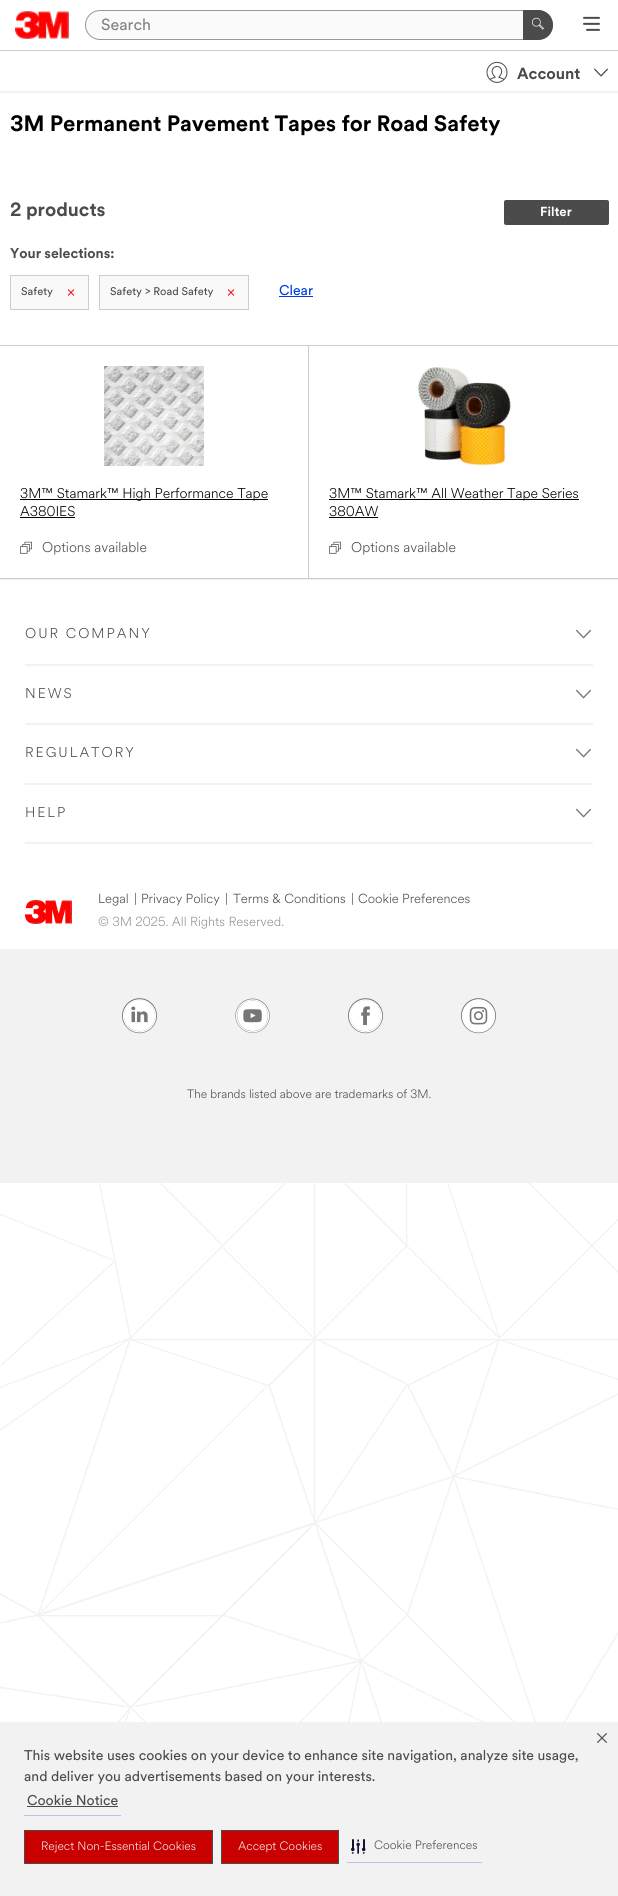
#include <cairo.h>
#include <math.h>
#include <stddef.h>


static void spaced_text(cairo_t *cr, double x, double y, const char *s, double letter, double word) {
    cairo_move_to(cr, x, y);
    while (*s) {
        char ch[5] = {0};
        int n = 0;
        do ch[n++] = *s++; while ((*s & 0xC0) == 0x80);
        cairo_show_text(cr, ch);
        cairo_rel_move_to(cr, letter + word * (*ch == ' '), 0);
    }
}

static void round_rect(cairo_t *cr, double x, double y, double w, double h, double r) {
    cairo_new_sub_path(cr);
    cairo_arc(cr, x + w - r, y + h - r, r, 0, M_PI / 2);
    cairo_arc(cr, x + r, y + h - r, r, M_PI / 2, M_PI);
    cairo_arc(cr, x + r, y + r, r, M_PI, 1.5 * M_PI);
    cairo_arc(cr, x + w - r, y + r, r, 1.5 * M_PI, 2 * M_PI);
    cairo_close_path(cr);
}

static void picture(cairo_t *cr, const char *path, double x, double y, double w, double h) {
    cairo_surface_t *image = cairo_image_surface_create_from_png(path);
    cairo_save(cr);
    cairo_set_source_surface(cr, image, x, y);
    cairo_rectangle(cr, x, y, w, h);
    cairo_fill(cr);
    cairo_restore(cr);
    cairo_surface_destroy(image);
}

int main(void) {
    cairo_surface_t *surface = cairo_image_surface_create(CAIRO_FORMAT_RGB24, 618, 1896);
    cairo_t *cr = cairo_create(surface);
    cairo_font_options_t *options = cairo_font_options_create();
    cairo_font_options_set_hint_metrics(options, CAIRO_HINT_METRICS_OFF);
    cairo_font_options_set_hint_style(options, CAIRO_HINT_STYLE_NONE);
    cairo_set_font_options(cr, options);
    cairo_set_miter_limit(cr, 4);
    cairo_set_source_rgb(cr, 1, 1, 1);
    cairo_paint(cr);
    picture(cr, "img1.png", 0, 1183, 618, 539);
    cairo_set_source_rgb(cr, 0.949, 0.949, 0.949);
    cairo_rectangle(cr, 0, 91, 618, 2);
    cairo_fill(cr);
    picture(cr, "img2.png", 15, 11, 54, 28);
    cairo_set_source_rgb(cr, 0.98, 0.98, 0.98);
    round_rect(cr, 85.5, 10.5, 467, 29, 14.5);
    cairo_fill_preserve(cr);
    cairo_set_source_rgb(cr, 0.592, 0.592, 0.592);
    cairo_set_line_width(cr, 1);
    cairo_stroke(cr);
    cairo_select_font_face(cr, "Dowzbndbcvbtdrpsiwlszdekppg", CAIRO_FONT_SLANT_NORMAL, CAIRO_FONT_WEIGHT_NORMAL);
    cairo_set_font_size(cr, 16);
    cairo_set_source_rgb(cr, 0.514, 0.514, 0.514);
    cairo_move_to(cr, 101, 30);
    cairo_show_text(cr, "Search");
    cairo_set_source_rgb(cr, 0.294, 0.294, 0.294);
    cairo_new_path(cr);
    cairo_move_to(cr, 523, 10);
    cairo_line_to(cr, 538, 10);
    cairo_curve_to(cr, 546.5, 10, 553, 16.5, 553, 25);
    cairo_curve_to(cr, 553, 33.5, 546.5, 40, 538, 40);
    cairo_line_to(cr, 523, 40);
    cairo_close_path(cr);
    cairo_fill(cr);
    picture(cr, "img3.png", 532, 17, 12, 13);
    picture(cr, "img4.png", 583, 16, 17, 15);
    cairo_set_source_rgb(cr, 0.8, 0.8, 0.8);
    cairo_rectangle(cr, 0, 50, 618, 1);
    cairo_fill(cr);
    picture(cr, "img5.png", 486, 61, 22, 22);
    cairo_select_font_face(cr, "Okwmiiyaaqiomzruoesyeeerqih", CAIRO_FONT_SLANT_NORMAL, CAIRO_FONT_WEIGHT_BOLD);
    cairo_set_source_rgb(cr, 0.294, 0.294, 0.294);
    cairo_move_to(cr, 517, 79);
    cairo_show_text(cr, "Account");
    picture(cr, "img6.png", 594, 68, 14, 9);
    cairo_set_font_size(cr, 22);
    cairo_set_source_rgb(cr, 0, 0, 0);
    cairo_move_to(cr, 10, 131);
    cairo_show_text(cr, "3M Permanent Pavement Tapes for Road Safety");
    cairo_set_font_size(cr, 19);
    cairo_set_source_rgb(cr, 0.294, 0.294, 0.294);
    cairo_move_to(cr, 10, 216);
    cairo_show_text(cr, "2 products");
    round_rect(cr, 504, 200, 105, 25, 2);
    cairo_fill(cr);
    cairo_set_font_size(cr, 13);
    cairo_set_source_rgb(cr, 1, 1, 1);
    cairo_move_to(cr, 540, 216);
    cairo_show_text(cr, "Filter");
    cairo_set_font_size(cr, 14);
    cairo_set_source_rgb(cr, 0.294, 0.294, 0.294);
    cairo_move_to(cr, 10, 258);
    cairo_show_text(cr, "Your selections:");
    cairo_set_source_rgb(cr, 0.976, 0.976, 0.976);
    cairo_rectangle(cr, 10.5, 275.5, 78, 34);
    cairo_fill_preserve(cr);
    cairo_set_source_rgb(cr, 0.8, 0.8, 0.8);
    cairo_stroke(cr);
    cairo_select_font_face(cr, "Dowzbndbcvbtdrpsiwlszdekppg", CAIRO_FONT_SLANT_NORMAL, CAIRO_FONT_WEIGHT_NORMAL);
    cairo_set_font_size(cr, 11);
    cairo_set_source_rgb(cr, 0.294, 0.294, 0.294);
    cairo_move_to(cr, 21, 295);
    cairo_show_text(cr, "Safety");
    picture(cr, "img7.png", 67, 289, 8, 7);
    cairo_set_source_rgb(cr, 0.976, 0.976, 0.976);
    cairo_rectangle(cr, 99.5, 275.5, 149, 34);
    cairo_fill_preserve(cr);
    cairo_set_source_rgb(cr, 0.8, 0.8, 0.8);
    cairo_stroke(cr);
    cairo_set_source_rgb(cr, 0.294, 0.294, 0.294);
    cairo_move_to(cr, 110, 295);
    cairo_show_text(cr, "Safety > Road Safety");
    picture(cr, "img7.png", 227, 289, 8, 7);
    cairo_set_font_size(cr, 14);
    cairo_set_source_rgb(cr, 0, 0.235, 0.902);
    cairo_move_to(cr, 279, 295);
    cairo_show_text(cr, "Clear");
    cairo_rectangle(cr, 279, 296, 34, 1);
    cairo_fill(cr);
    cairo_set_source_rgb(cr, 0.8, 0.8, 0.8);
    cairo_rectangle(cr, 0, 345, 618, 1);
    cairo_fill(cr);
    cairo_rectangle(cr, 308, 346, 1, 233);
    cairo_fill(cr);
    cairo_rectangle(cr, 0, 578, 618, 1);
    cairo_fill(cr);
    picture(cr, "img8.png", 104, 366, 100, 100);
    cairo_set_source_rgb(cr, 0, 0, 0);
    cairo_rectangle(cr, 20, 499, 248, 1);
    cairo_fill(cr);
    cairo_select_font_face(cr, "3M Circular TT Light", CAIRO_FONT_SLANT_NORMAL, CAIRO_FONT_WEIGHT_NORMAL);
    cairo_move_to(cr, 20, 498);
    cairo_show_text(cr, "3M™ Stamark™ High Performance Tape");
    cairo_move_to(cr, 20, 516);
    cairo_show_text(cr, "A380IES");
    cairo_rectangle(cr, 20, 517, 55, 1);
    cairo_fill(cr);
    picture(cr, "img9.png", 20, 541, 12, 13);
    cairo_set_source_rgb(cr, 0.294, 0.294, 0.294);
    cairo_move_to(cr, 42, 552);
    cairo_show_text(cr, "Options available");
    picture(cr, "img10.png", 418, 367, 93, 99);
    cairo_set_source_rgb(cr, 0, 0, 0);
    cairo_rectangle(cr, 329, 499, 250, 1);
    cairo_fill(cr);
    cairo_move_to(cr, 329, 498);
    cairo_show_text(cr, "3M™ Stamark™ All Weather Tape Series");
    cairo_move_to(cr, 329, 516);
    cairo_show_text(cr, "380AW");
    cairo_rectangle(cr, 329, 517, 49, 1);
    cairo_fill(cr);
    picture(cr, "img9.png", 329, 541, 12, 13);
    cairo_set_source_rgb(cr, 0.294, 0.294, 0.294);
    cairo_move_to(cr, 351, 552);
    cairo_show_text(cr, "Options available");
    cairo_set_source_rgb(cr, 0.949, 0.949, 0.949);
    cairo_rectangle(cr, 0, 579, 618, 1);
    cairo_fill(cr);
    cairo_rectangle(cr, 25, 664, 568, 2);
    cairo_fill(cr);
    cairo_set_source_rgb(cr, 0.294, 0.294, 0.294);
    spaced_text(cr, 25, 638, "OUR COMPANY", 2, 0);
    picture(cr, "img11.png", 576, 629, 15, 10);
    cairo_set_source_rgb(cr, 0.949, 0.949, 0.949);
    cairo_rectangle(cr, 25, 723, 568, 2);
    cairo_fill(cr);
    cairo_set_source_rgb(cr, 0.294, 0.294, 0.294);
    spaced_text(cr, 25, 698, "NEWS", 2, 0);
    picture(cr, "img11.png", 576, 689, 15, 10);
    cairo_set_source_rgb(cr, 0.949, 0.949, 0.949);
    cairo_rectangle(cr, 25, 783, 568, 2);
    cairo_fill(cr);
    cairo_set_source_rgb(cr, 0.294, 0.294, 0.294);
    spaced_text(cr, 25, 757, "REGULATORY", 2, 0);
    picture(cr, "img11.png", 576, 748, 15, 10);
    cairo_set_source_rgb(cr, 0.949, 0.949, 0.949);
    cairo_rectangle(cr, 25, 842, 568, 2);
    cairo_fill(cr);
    cairo_set_source_rgb(cr, 0.294, 0.294, 0.294);
    spaced_text(cr, 25, 817, "HELP", 2, 0);
    picture(cr, "img11.png", 576, 808, 15, 10);
    picture(cr, "img12.png", 25, 900, 47, 24);
    cairo_set_font_size(cr, 13);
    cairo_move_to(cr, 98, 903);
    cairo_show_text(cr, "Legal");
    cairo_move_to(cr, 134, 903);
    cairo_show_text(cr, "|");
    cairo_move_to(cr, 141, 903);
    cairo_show_text(cr, "Privacy Policy");
    cairo_move_to(cr, 225, 903);
    cairo_show_text(cr, "|");
    cairo_move_to(cr, 233, 903);
    cairo_show_text(cr, "Terms & Conditions");
    cairo_move_to(cr, 351, 903);
    cairo_show_text(cr, "|");
    cairo_move_to(cr, 358, 903);
    cairo_show_text(cr, "Cookie Preferences");
    cairo_set_source_rgb(cr, 0.576, 0.576, 0.576);
    cairo_move_to(cr, 98, 926);
    cairo_show_text(cr, "© 3M 2025. All Rights Reserved.");
    cairo_set_source_rgb(cr, 0.949, 0.949, 0.949);
    cairo_rectangle(cr, 0, 949, 618, 234);
    cairo_fill(cr);
    cairo_set_source_rgb(cr, 1, 1, 1);
    cairo_arc(cr, 139.5, 1015.5, 17.5, 0, 2 * M_PI);
    cairo_fill(cr);
    picture(cr, "img13.png", 122, 998, 35, 36);
    picture(cr, "img14.png", 122, 999, 35, 34);
    cairo_arc(cr, 252.5, 1015.5, 17.5, 0, 2 * M_PI);
    cairo_fill(cr);
    picture(cr, "img15.png", 235, 998, 35, 35);
    picture(cr, "img16.png", 235, 999, 35, 34);
    cairo_arc(cr, 365.5, 1015.5, 17.5, 0, 2 * M_PI);
    cairo_fill(cr);
    picture(cr, "img17.png", 348, 998, 35, 36);
    picture(cr, "img18.png", 348, 999, 35, 34);
    cairo_arc(cr, 478.5, 1015.5, 17.5, 0, 2 * M_PI);
    cairo_fill(cr);
    picture(cr, "img19.png", 461, 998, 35, 36);
    picture(cr, "img20.png", 461, 999, 35, 34);
    cairo_set_font_size(cr, 12);
    cairo_set_source_rgb(cr, 0.294, 0.294, 0.294);
    cairo_move_to(cr, 187, 1098);
    cairo_show_text(cr, "The brands listed above are trademarks of 3M.");
    cairo_set_source_rgb(cr, 0.949, 0.949, 0.949);
    cairo_rectangle(cr, 0, 1722, 618, 174);
    cairo_fill(cr);
    cairo_select_font_face(cr, "Dowzbndbcvbtdrpsiwlszdekppg", CAIRO_FONT_SLANT_NORMAL, CAIRO_FONT_WEIGHT_NORMAL);
    cairo_set_font_size(cr, 14);
    cairo_set_source_rgb(cr, 0.294, 0.294, 0.294);
    cairo_move_to(cr, 24, 1760);
    cairo_show_text(cr, "This website uses cookies on your device to enhance site navigation, analyze site usage,");
    cairo_move_to(cr, 24, 1781);
    cairo_show_text(cr, "and deliver you advertisements based on your interests.");
    cairo_set_source_rgb(cr, 0.714, 0.761, 0.914);
    cairo_rectangle(cr, 24, 1815, 97, 1);
    cairo_fill(cr);
    cairo_set_source_rgb(cr, 0.294, 0.294, 0.294);
    cairo_move_to(cr, 27, 1805);
    cairo_show_text(cr, "Cookie Notice");
    cairo_rectangle(cr, 27, 1806, 91, 1);
    cairo_fill(cr);
    picture(cr, "img21.png", 597, 1733, 10, 10);
    cairo_set_source_rgb(cr, 0.784, 0, 0);
    cairo_rectangle(cr, 24.5, 1830.5, 188, 33);
    cairo_fill_preserve(cr);
    cairo_set_source_rgb(cr, 0.294, 0.294, 0.294);
    cairo_stroke(cr);
    cairo_select_font_face(cr, "3M Circular TT Light", CAIRO_FONT_SLANT_NORMAL, CAIRO_FONT_WEIGHT_NORMAL);
    cairo_set_font_size(cr, 12);
    cairo_set_source_rgb(cr, 0.949, 0.949, 0.949);
    cairo_move_to(cr, 41, 1850);
    cairo_show_text(cr, "Reject Non-Essential Cookies");
    cairo_set_source_rgb(cr, 0.784, 0, 0);
    cairo_rectangle(cr, 221.5, 1830.5, 117, 33);
    cairo_fill_preserve(cr);
    cairo_set_source_rgb(cr, 0.294, 0.294, 0.294);
    cairo_stroke(cr);
    cairo_set_source_rgb(cr, 0.949, 0.949, 0.949);
    cairo_move_to(cr, 238, 1850);
    cairo_show_text(cr, "Accept Cookies");
    cairo_set_source_rgb(cr, 0.714, 0.761, 0.914);
    cairo_rectangle(cr, 347, 1862, 135, 1);
    cairo_fill(cr);
    picture(cr, "img22.png", 351, 1839, 15, 15);
    cairo_set_source_rgb(cr, 0.294, 0.294, 0.294);
    cairo_move_to(cr, 374, 1849);
    cairo_show_text(cr, "Cookie Preferences");
    cairo_surface_write_to_png(surface, "page.png");
    cairo_font_options_destroy(options);
    cairo_destroy(cr);
    cairo_surface_destroy(surface);
    return 0;
}
